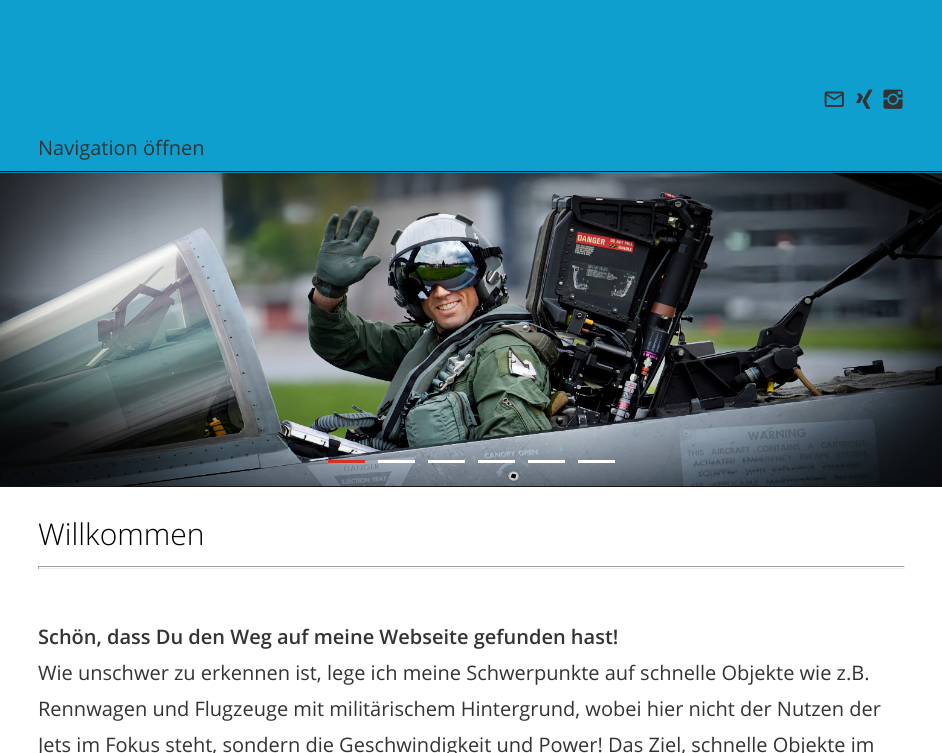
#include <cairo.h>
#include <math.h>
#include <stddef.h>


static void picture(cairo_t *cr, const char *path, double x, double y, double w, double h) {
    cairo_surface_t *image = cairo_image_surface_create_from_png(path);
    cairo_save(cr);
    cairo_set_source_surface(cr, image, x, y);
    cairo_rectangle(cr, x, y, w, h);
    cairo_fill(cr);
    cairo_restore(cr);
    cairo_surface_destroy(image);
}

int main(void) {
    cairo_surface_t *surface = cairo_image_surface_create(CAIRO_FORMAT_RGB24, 942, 753);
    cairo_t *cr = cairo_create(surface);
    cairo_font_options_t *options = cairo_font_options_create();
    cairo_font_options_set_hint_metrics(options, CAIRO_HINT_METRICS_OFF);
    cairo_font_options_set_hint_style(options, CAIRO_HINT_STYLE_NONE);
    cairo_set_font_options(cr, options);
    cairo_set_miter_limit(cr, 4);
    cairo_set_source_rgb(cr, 0.055, 0.624, 0.812);
    cairo_paint(cr);
    picture(cr, "img1.png", 824, 91, 20, 16);
    picture(cr, "img2.png", 856, 89, 17, 20);
    picture(cr, "img3.png", 883, 89, 20, 20);
    cairo_set_source_rgb(cr, 0.071, 0.071, 0.071);
    cairo_rectangle(cr, 0, 171, 942, 1);
    cairo_fill(cr);
    cairo_select_font_face(cr, "Open Sans", CAIRO_FONT_SLANT_NORMAL, CAIRO_FONT_WEIGHT_NORMAL);
    cairo_set_font_size(cr, 20);
    cairo_set_source_rgb(cr, 0.2, 0.2, 0.2);
    cairo_move_to(cr, 38, 155);
    cairo_show_text(cr, "Navigation öffnen");
    cairo_set_source_rgb(cr, 1, 1, 1);
    cairo_rectangle(cr, 0, 487, 942, 266);
    cairo_fill(cr);
    cairo_set_source_rgb(cr, 0.071, 0.071, 0.071);
    cairo_rectangle(cr, 0, 486, 942, 1);
    cairo_fill(cr);
    picture(cr, "img4.png", 0, 172, 942, 315);
    cairo_set_source_rgb(cr, 0.831, 0.2, 0.141);
    cairo_rectangle(cr, 328, 460, 37, 3);
    cairo_fill(cr);
    cairo_set_source_rgb(cr, 1, 1, 1);
    cairo_rectangle(cr, 378, 460, 37, 3);
    cairo_fill(cr);
    cairo_rectangle(cr, 428, 460, 37, 3);
    cairo_fill(cr);
    cairo_rectangle(cr, 478, 460, 37, 3);
    cairo_fill(cr);
    cairo_rectangle(cr, 528, 460, 37, 3);
    cairo_fill(cr);
    cairo_rectangle(cr, 578, 460, 37, 3);
    cairo_fill(cr);
    cairo_select_font_face(cr, "Open Sans Light", CAIRO_FONT_SLANT_NORMAL, CAIRO_FONT_WEIGHT_NORMAL);
    cairo_set_font_size(cr, 30);
    cairo_set_source_rgb(cr, 0, 0, 0);
    cairo_move_to(cr, 38, 545);
    cairo_show_text(cr, "Willkommen");
    cairo_set_source_rgb(cr, 0.624, 0.624, 0.624);
    cairo_rectangle(cr, 38, 566, 867, 1);
    cairo_fill(cr);
    cairo_set_source_rgb(cr, 0.933, 0.933, 0.933);
    cairo_rectangle(cr, 904, 566, 1, 3);
    cairo_fill(cr);
    cairo_rectangle(cr, 38, 568, 867, 1);
    cairo_fill(cr);
    cairo_set_source_rgb(cr, 0.624, 0.624, 0.624);
    cairo_rectangle(cr, 38, 566, 1, 3);
    cairo_fill(cr);
    cairo_select_font_face(cr, "Open Sans SemiBold", CAIRO_FONT_SLANT_NORMAL, CAIRO_FONT_WEIGHT_NORMAL);
    cairo_set_font_size(cr, 20);
    cairo_set_source_rgb(cr, 0.2, 0.2, 0.2);
    cairo_move_to(cr, 38, 644);
    cairo_show_text(cr, "Schön, dass Du den Weg auf meine Webseite gefunden hast!");
    cairo_select_font_face(cr, "Open Sans", CAIRO_FONT_SLANT_NORMAL, CAIRO_FONT_WEIGHT_NORMAL);
    cairo_move_to(cr, 38, 680);
    cairo_show_text(cr, "Wie unschwer zu erkennen ist, lege ich meine Schwerpunkte auf schnelle Objekte wie z.B.");
    cairo_move_to(cr, 38, 716);
    cairo_show_text(cr, "Rennwagen und Flugzeuge mit militärischem Hintergrund, wobei hier nicht der Nutzen der");
    cairo_move_to(cr, 38, 752);
    cairo_show_text(cr, "Jets im Fokus steht, sondern die Geschwindigkeit und Power! Das Ziel, schnelle Objekte im");
    cairo_surface_write_to_png(surface, "page.png");
    cairo_font_options_destroy(options);
    cairo_destroy(cr);
    cairo_surface_destroy(surface);
    return 0;
}
